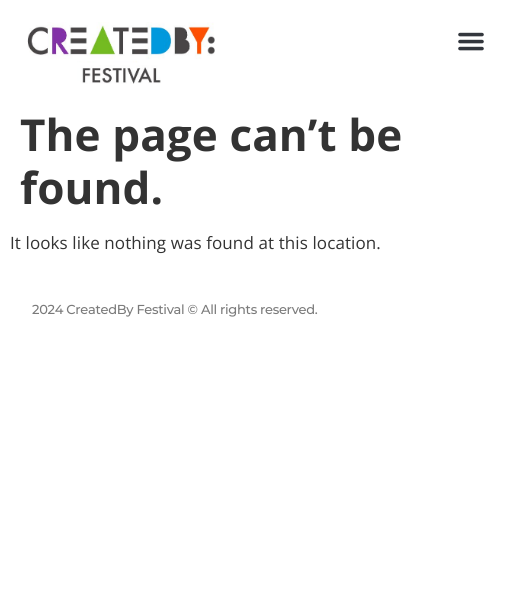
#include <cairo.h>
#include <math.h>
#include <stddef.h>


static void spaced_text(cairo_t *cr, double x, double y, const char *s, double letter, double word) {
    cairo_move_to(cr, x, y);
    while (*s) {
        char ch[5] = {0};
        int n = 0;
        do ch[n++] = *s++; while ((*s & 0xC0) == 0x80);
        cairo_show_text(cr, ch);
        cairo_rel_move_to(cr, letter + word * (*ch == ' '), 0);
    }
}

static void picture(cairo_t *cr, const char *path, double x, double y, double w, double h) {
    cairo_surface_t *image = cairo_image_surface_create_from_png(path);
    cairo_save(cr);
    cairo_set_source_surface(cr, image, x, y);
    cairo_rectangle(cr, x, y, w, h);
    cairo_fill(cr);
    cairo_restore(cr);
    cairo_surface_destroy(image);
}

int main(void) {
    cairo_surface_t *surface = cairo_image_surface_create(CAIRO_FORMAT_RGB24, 524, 602);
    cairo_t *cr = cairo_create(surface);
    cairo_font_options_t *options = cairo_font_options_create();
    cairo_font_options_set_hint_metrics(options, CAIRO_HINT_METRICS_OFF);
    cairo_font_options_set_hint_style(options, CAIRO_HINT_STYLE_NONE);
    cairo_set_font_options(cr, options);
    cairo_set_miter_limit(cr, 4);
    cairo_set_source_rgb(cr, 1, 1, 1);
    cairo_paint(cr);
    picture(cr, "img1.png", 27, 22, 188, 62);
    picture(cr, "img2.png", 458, 32, 26, 19);
    cairo_select_font_face(cr, "Open Sans", CAIRO_FONT_SLANT_NORMAL, CAIRO_FONT_WEIGHT_BOLD);
    cairo_set_font_size(cr, 44);
    cairo_set_source_rgb(cr, 0.2, 0.2, 0.2);
    spaced_text(cr, 20, 151, "The page can’t be", 0.1, 0);
    spaced_text(cr, 20, 204, "found.", 0.1, 0);
    cairo_select_font_face(cr, "Open Sans", CAIRO_FONT_SLANT_NORMAL, CAIRO_FONT_WEIGHT_NORMAL);
    cairo_set_font_size(cr, 17);
    spaced_text(cr, 10, 249, "It looks like nothing was found at this location.", 0.1, 0);
    cairo_select_font_face(cr, "Montserrat Medium", CAIRO_FONT_SLANT_NORMAL, CAIRO_FONT_WEIGHT_NORMAL);
    cairo_set_font_size(cr, 13);
    cairo_set_source_rgb(cr, 0.478, 0.478, 0.478);
    spaced_text(cr, 32, 314, "2024 CreatedBy Festival © All rights reserved.", -0.3, 0);
    cairo_surface_write_to_png(surface, "page.png");
    cairo_font_options_destroy(options);
    cairo_destroy(cr);
    cairo_surface_destroy(surface);
    return 0;
}
